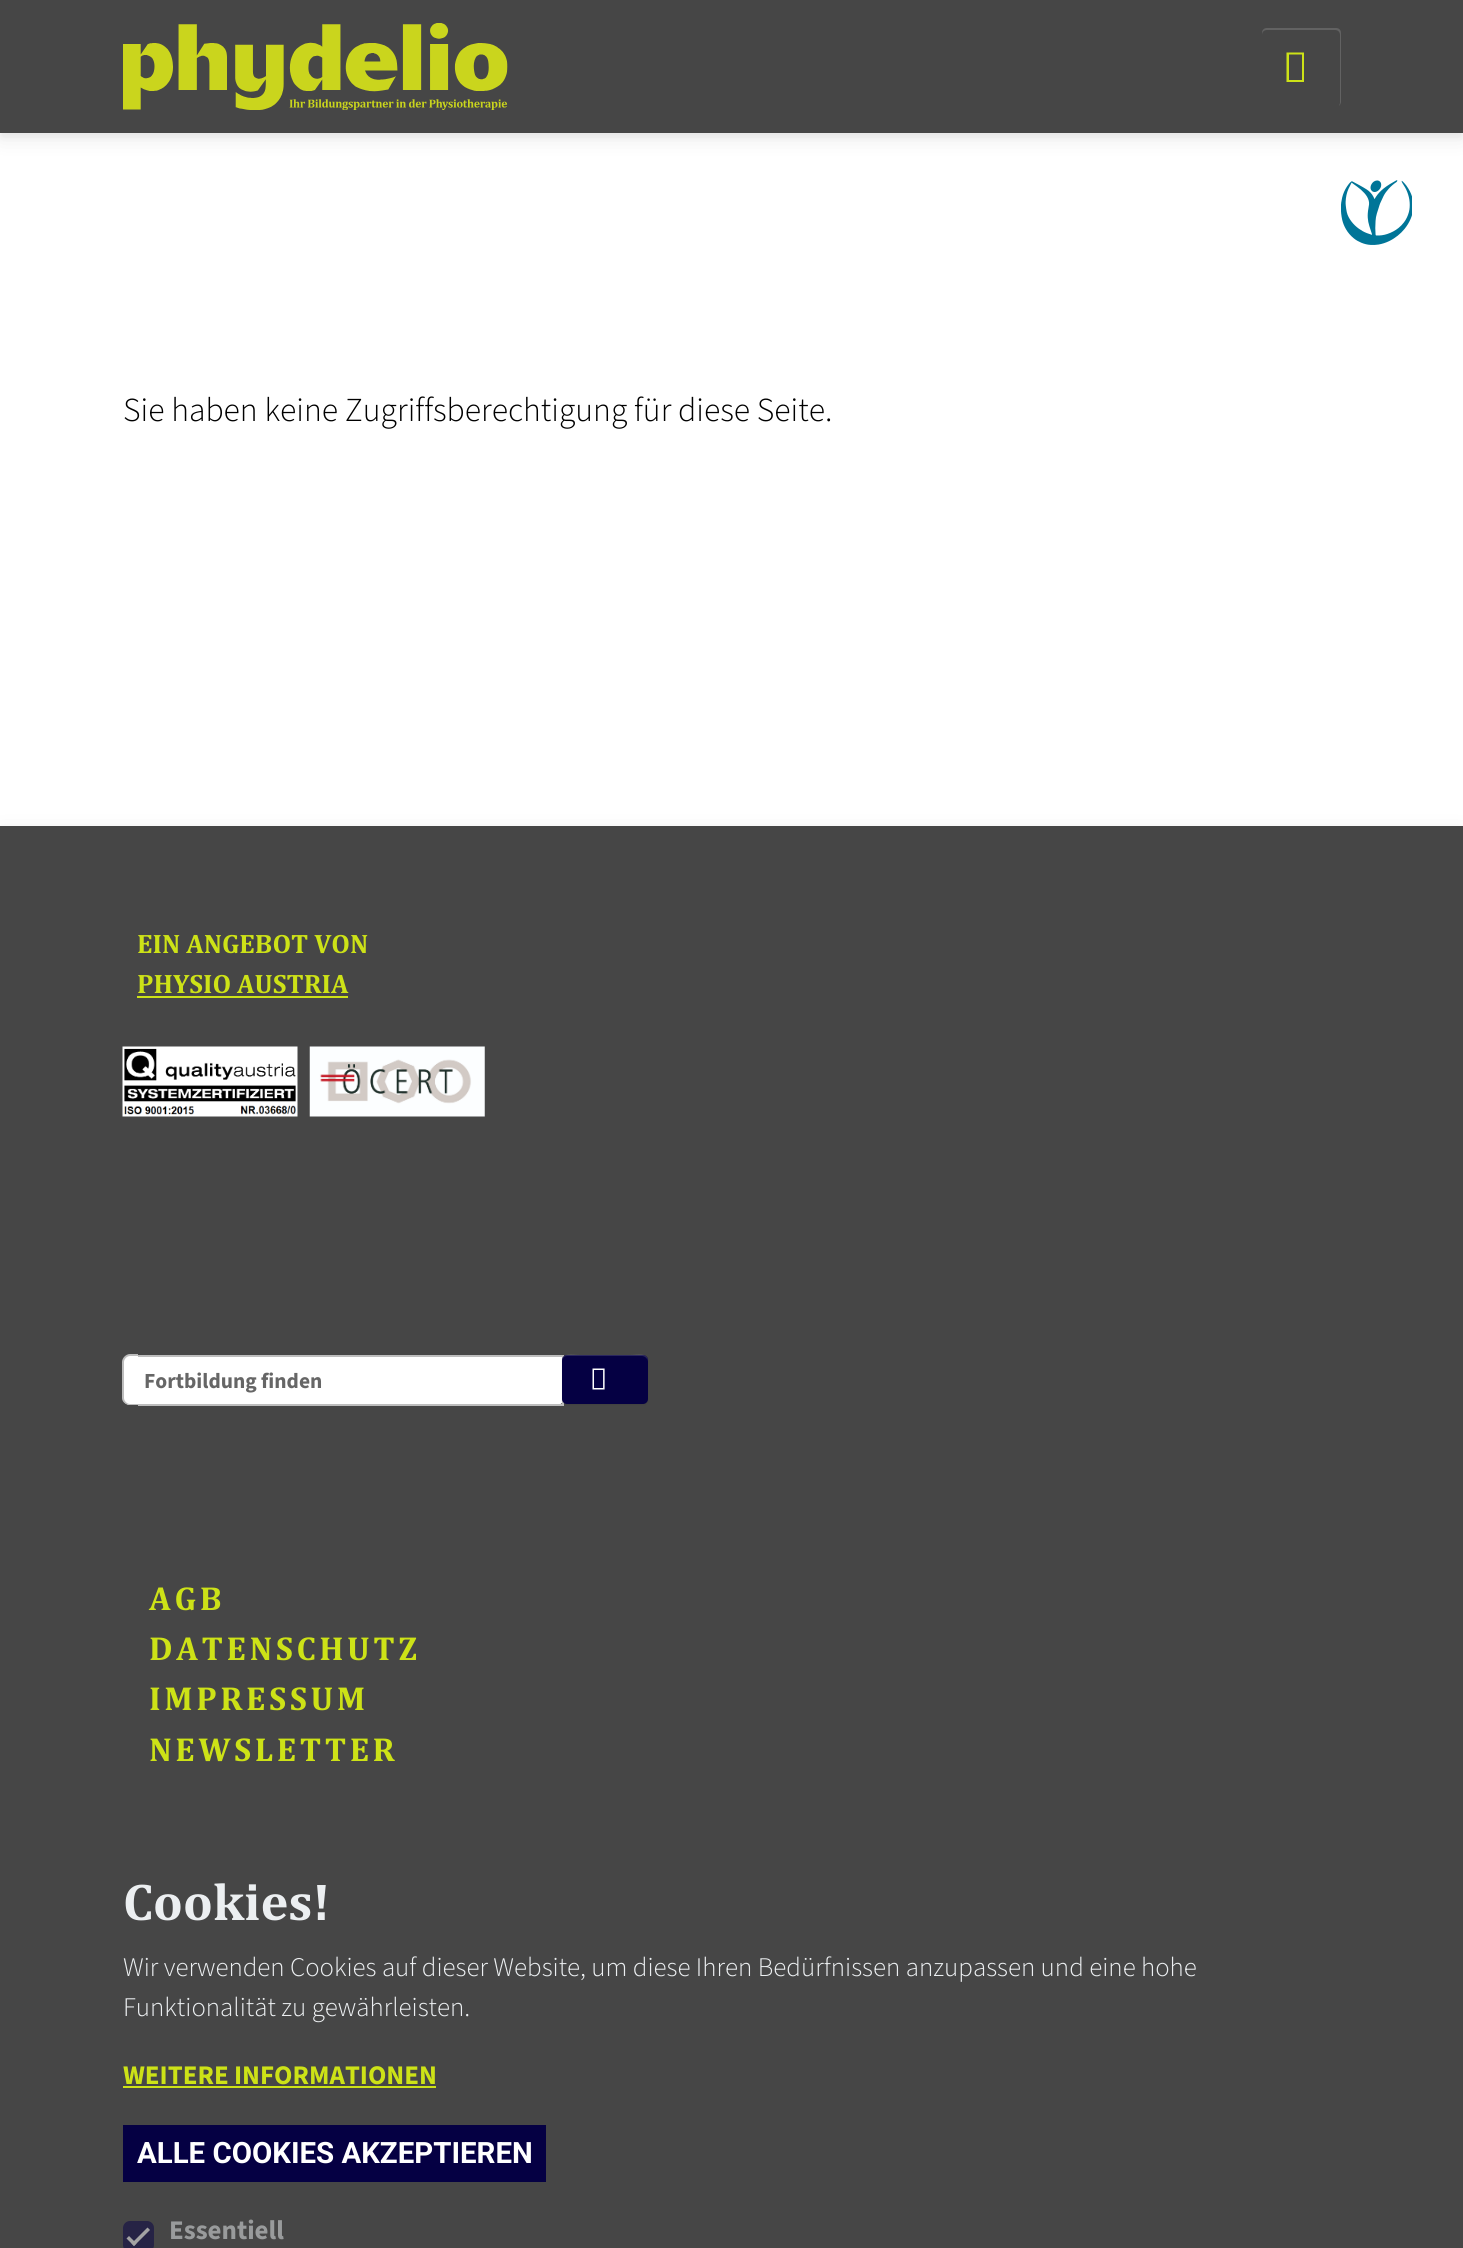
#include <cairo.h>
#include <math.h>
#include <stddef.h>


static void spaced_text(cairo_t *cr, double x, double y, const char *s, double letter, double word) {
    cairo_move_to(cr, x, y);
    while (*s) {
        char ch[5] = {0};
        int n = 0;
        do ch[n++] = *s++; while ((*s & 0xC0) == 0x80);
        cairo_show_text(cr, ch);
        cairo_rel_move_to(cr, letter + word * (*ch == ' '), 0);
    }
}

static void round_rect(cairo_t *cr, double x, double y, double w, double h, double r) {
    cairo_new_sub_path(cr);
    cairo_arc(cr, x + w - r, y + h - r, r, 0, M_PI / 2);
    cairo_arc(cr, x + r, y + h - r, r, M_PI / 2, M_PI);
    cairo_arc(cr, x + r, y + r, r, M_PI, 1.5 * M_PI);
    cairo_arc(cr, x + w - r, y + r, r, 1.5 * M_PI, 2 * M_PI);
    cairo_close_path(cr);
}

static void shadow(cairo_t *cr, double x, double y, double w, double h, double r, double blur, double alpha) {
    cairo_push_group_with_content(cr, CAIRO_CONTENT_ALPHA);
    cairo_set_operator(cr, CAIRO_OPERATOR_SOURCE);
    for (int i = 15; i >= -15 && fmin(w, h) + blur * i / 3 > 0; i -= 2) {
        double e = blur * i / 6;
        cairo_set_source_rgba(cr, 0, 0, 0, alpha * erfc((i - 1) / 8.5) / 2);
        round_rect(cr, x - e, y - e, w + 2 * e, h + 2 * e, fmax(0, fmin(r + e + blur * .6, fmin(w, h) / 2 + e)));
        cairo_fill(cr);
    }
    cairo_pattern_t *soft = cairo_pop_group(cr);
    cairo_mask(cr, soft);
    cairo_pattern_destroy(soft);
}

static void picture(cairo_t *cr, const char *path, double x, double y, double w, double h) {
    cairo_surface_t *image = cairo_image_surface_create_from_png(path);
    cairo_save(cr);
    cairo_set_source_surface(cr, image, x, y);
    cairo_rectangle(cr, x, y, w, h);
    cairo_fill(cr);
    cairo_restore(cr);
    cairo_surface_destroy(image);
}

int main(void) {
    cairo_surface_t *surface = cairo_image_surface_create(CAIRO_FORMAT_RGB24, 1463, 2248);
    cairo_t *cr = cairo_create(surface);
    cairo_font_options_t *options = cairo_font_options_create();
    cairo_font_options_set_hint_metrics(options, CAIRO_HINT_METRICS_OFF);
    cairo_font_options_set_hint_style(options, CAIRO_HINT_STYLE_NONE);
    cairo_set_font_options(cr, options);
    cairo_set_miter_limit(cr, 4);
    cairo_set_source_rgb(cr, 1, 1, 1);
    cairo_paint(cr);
    cairo_set_source_rgb(cr, 0, 0, 0);
    shadow(cr, 0, 4, 1463, 133, 0, 3.5, 0.05);
    shadow(cr, 0, 7, 1463, 133, 0, 10.5, 0.07);
    cairo_set_source_rgb(cr, 0.275, 0.275, 0.275);
    cairo_rectangle(cr, 0, 0, 1463, 133);
    cairo_fill(cr);
    picture(cr, "img1.png", 123, 23, 385, 87);
    cairo_set_source_rgba(cr, 1, 1, 1, 0.15);
    cairo_new_path(cr);
    cairo_move_to(cr, 1267, 30);
    cairo_line_to(cr, 1335, 30);
    cairo_curve_to(cr, 1338, 30, 1340, 32, 1340, 35);
    cairo_line_to(cr, 1340, 103);
    cairo_line_to(cr, 1339, 106);
    cairo_curve_to(cr, 1340, 105, 1341, 103, 1341, 102);
    cairo_line_to(cr, 1341, 33);
    cairo_curve_to(cr, 1341, 30, 1339, 28, 1336, 28);
    cairo_line_to(cr, 1267, 28);
    cairo_curve_to(cr, 1264, 28, 1262, 30, 1262, 33);
    cairo_line_to(cr, 1262, 35);
    cairo_curve_to(cr, 1262, 32, 1264, 30, 1267, 30);
    cairo_close_path(cr);
    cairo_fill(cr);
    cairo_set_source_rgb(cr, 0.804, 0.886, 0.09);
    cairo_new_path(cr);
    cairo_move_to(cr, 1286.5, 82);
    cairo_line_to(cr, 1286.5, 52.5);
    cairo_line_to(cr, 1304, 52.5);
    cairo_line_to(cr, 1304, 82);
    cairo_close_path(cr);
    cairo_move_to(cr, 1289, 80);
    cairo_line_to(cr, 1302, 80);
    cairo_line_to(cr, 1302, 54.5);
    cairo_line_to(cr, 1289, 54.5);
    cairo_close_path(cr);
    cairo_fill(cr);
    picture(cr, "img2.png", 1341, 180, 71, 65);
    cairo_select_font_face(cr, "Source Sans 3 Light", CAIRO_FONT_SLANT_NORMAL, CAIRO_FONT_WEIGHT_NORMAL);
    cairo_set_font_size(cr, 33.6);
    cairo_set_source_rgb(cr, 0, 0, 0);
    cairo_move_to(cr, 123, 421);
    cairo_show_text(cr, "Sie haben keine Zugriffsberechtigung für diese Seite.");
    cairo_set_source_rgb(cr, 0, 0, 0);
    shadow(cr, 0, 840, 1463, 1332, 0, 14, 0.15);
    cairo_set_source_rgb(cr, 0.275, 0.275, 0.275);
    cairo_rectangle(cr, 0, 826, 1463, 1422);
    cairo_fill(cr);
    cairo_select_font_face(cr, "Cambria", CAIRO_FONT_SLANT_NORMAL, CAIRO_FONT_WEIGHT_BOLD);
    cairo_set_font_size(cr, 26.9);
    cairo_set_source_rgb(cr, 0.804, 0.886, 0.09);
    cairo_move_to(cr, 137, 953);
    cairo_show_text(cr, "EIN ANGEBOT VON");
    cairo_move_to(cr, 137, 993);
    cairo_show_text(cr, "PHYSIO AUSTRIA");
    cairo_rectangle(cr, 137, 996, 211, 2);
    cairo_fill(cr);
    picture(cr, "img3.png", 122, 1046, 176, 71);
    picture(cr, "img4.png", 309, 1046, 176, 71);
    cairo_set_source_rgb(cr, 1, 1, 1);
    round_rect(cr, 123, 1355, 441, 50, 7);
    cairo_fill(cr);
    cairo_set_source_rgb(cr, 0.741, 0.741, 0.741);
    cairo_set_fill_rule(cr, CAIRO_FILL_RULE_EVEN_ODD);
    cairo_new_path(cr);
    cairo_move_to(cr, 130, 1354);
    cairo_line_to(cr, 138, 1354);
    cairo_line_to(cr, 138, 1405);
    cairo_line_to(cr, 130, 1405);
    cairo_curve_to(cr, 126, 1405, 122, 1402, 122, 1398);
    cairo_line_to(cr, 122, 1362);
    cairo_curve_to(cr, 122, 1358, 126, 1354, 130, 1354);
    cairo_close_path(cr);
    cairo_move_to(cr, 130, 1356);
    cairo_line_to(cr, 138, 1356);
    cairo_line_to(cr, 138, 1404);
    cairo_line_to(cr, 130, 1404);
    cairo_curve_to(cr, 127, 1404, 124, 1401, 124, 1398);
    cairo_line_to(cr, 124, 1362);
    cairo_curve_to(cr, 124, 1359, 127, 1356, 130, 1356);
    cairo_close_path(cr);
    cairo_fill(cr);
    cairo_rectangle(cr, 138, 1355, 426, 2);
    cairo_fill(cr);
    cairo_rectangle(cr, 138, 1404, 165, 2);
    cairo_fill(cr);
    cairo_rectangle(cr, 562, 1355, 2, 50);
    cairo_fill(cr);
    cairo_rectangle(cr, 303, 1404, 261, 2);
    cairo_fill(cr);
    cairo_select_font_face(cr, "Source Sans 3", CAIRO_FONT_SLANT_NORMAL, CAIRO_FONT_WEIGHT_BOLD);
    cairo_set_font_size(cr, 21.5);
    cairo_set_source_rgb(cr, 0.4, 0.4, 0.4);
    cairo_move_to(cr, 144, 1388);
    cairo_show_text(cr, "Fortbildung finden");
    cairo_set_source_rgb(cr, 0, 0, 0);
    shadow(cr, 562, 1356, 86, 49, 5, 1, 0.07);
    cairo_set_source_rgb(cr, 0.02, 0, 0.263);
    round_rect(cr, 562, 1355, 86, 49, 5);
    cairo_fill(cr);
    cairo_set_source_rgba(cr, 1, 1, 1, 0.15);
    cairo_set_fill_rule(cr, CAIRO_FILL_RULE_WINDING);
    cairo_new_path(cr);
    cairo_move_to(cr, 567, 1356);
    cairo_line_to(cr, 642, 1356);
    cairo_curve_to(cr, 645, 1356, 648, 1359, 648, 1362);
    cairo_curve_to(cr, 648, 1352, 639, 1355, 630, 1355);
    cairo_line_to(cr, 580, 1355);
    cairo_curve_to(cr, 571, 1355, 562, 1352, 562, 1362);
    cairo_curve_to(cr, 562, 1359, 564, 1356, 567, 1356);
    cairo_close_path(cr);
    cairo_fill(cr);
    picture(cr, "img5.png", 592, 1368, 13, 22);
    cairo_select_font_face(cr, "Cambria", CAIRO_FONT_SLANT_NORMAL, CAIRO_FONT_WEIGHT_BOLD);
    cairo_set_font_size(cr, 33.6);
    cairo_set_source_rgb(cr, 0.804, 0.886, 0.09);
    spaced_text(cr, 149, 1610, "AGB", 3.5, 0);
    spaced_text(cr, 149, 1660, "DATENSCHUTZ", 3.5, 0);
    spaced_text(cr, 149, 1710, "IMPRESSUM", 3.5, 0);
    spaced_text(cr, 149, 1761, "NEWSLETTER", 3.5, 0);
    cairo_set_font_size(cr, 52.5);
    cairo_set_source_rgb(cr, 0.925, 0.937, 0.945);
    cairo_move_to(cr, 123, 1920);
    cairo_show_text(cr, "Cookies!");
    cairo_select_font_face(cr, "Source Sans 3 Light", CAIRO_FONT_SLANT_NORMAL, CAIRO_FONT_WEIGHT_NORMAL);
    cairo_set_font_size(cr, 26.9);
    cairo_move_to(cr, 123, 1976);
    cairo_show_text(cr, "Wir verwenden Cookies auf dieser Website, um diese Ihren Bedürfnissen anzupassen und eine hohe");
    cairo_move_to(cr, 123, 2016);
    cairo_show_text(cr, "Funktionalität zu gewährleisten.");
    cairo_select_font_face(cr, "Source Sans 3", CAIRO_FONT_SLANT_NORMAL, CAIRO_FONT_WEIGHT_BOLD);
    cairo_set_source_rgb(cr, 0.804, 0.886, 0.09);
    cairo_move_to(cr, 123, 2084);
    cairo_show_text(cr, "WEITERE INFORMATIONEN");
    cairo_rectangle(cr, 123, 2086, 313, 2);
    cairo_fill(cr);
    cairo_set_source_rgb(cr, 0.02, 0, 0.263);
    cairo_rectangle(cr, 123, 2125, 423, 57);
    cairo_fill(cr);
    cairo_select_font_face(cr, "Roboto", CAIRO_FONT_SLANT_NORMAL, CAIRO_FONT_WEIGHT_BOLD);
    cairo_set_font_size(cr, 29.4);
    cairo_set_source_rgb(cr, 1, 1, 1);
    cairo_move_to(cr, 137, 2163);
    cairo_show_text(cr, "ALLE COOKIES AKZEPTIEREN");
    cairo_set_source_rgb(cr, 0.149, 0.137, 0.271);
    round_rect(cr, 125, 2223, 27, 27, 5);
    cairo_fill_preserve(cr);
    cairo_set_line_width(cr, 4);
    cairo_stroke(cr);
    cairo_set_source_rgb(cr, 0.639, 0.639, 0.639);
    cairo_new_path(cr);
    cairo_move_to(cr, 147.5, 2227.5);
    cairo_line_to(cr, 150, 2230);
    cairo_line_to(cr, 134, 2246);
    cairo_line_to(cr, 131.5, 2243.5);
    cairo_close_path(cr);
    cairo_fill(cr);
    cairo_new_path(cr);
    cairo_move_to(cr, 129, 2236);
    cairo_line_to(cr, 136.5, 2243.5);
    cairo_line_to(cr, 134, 2246);
    cairo_line_to(cr, 126.5, 2238.5);
    cairo_close_path(cr);
    cairo_fill(cr);
    cairo_select_font_face(cr, "Source Sans 3", CAIRO_FONT_SLANT_NORMAL, CAIRO_FONT_WEIGHT_BOLD);
    cairo_set_font_size(cr, 26.9);
    cairo_set_source_rgb(cr, 0.6, 0.608, 0.612);
    cairo_move_to(cr, 169, 2239);
    cairo_show_text(cr, "Essentiell");
    cairo_surface_write_to_png(surface, "page.png");
    cairo_font_options_destroy(options);
    cairo_destroy(cr);
    cairo_surface_destroy(surface);
    return 0;
}
